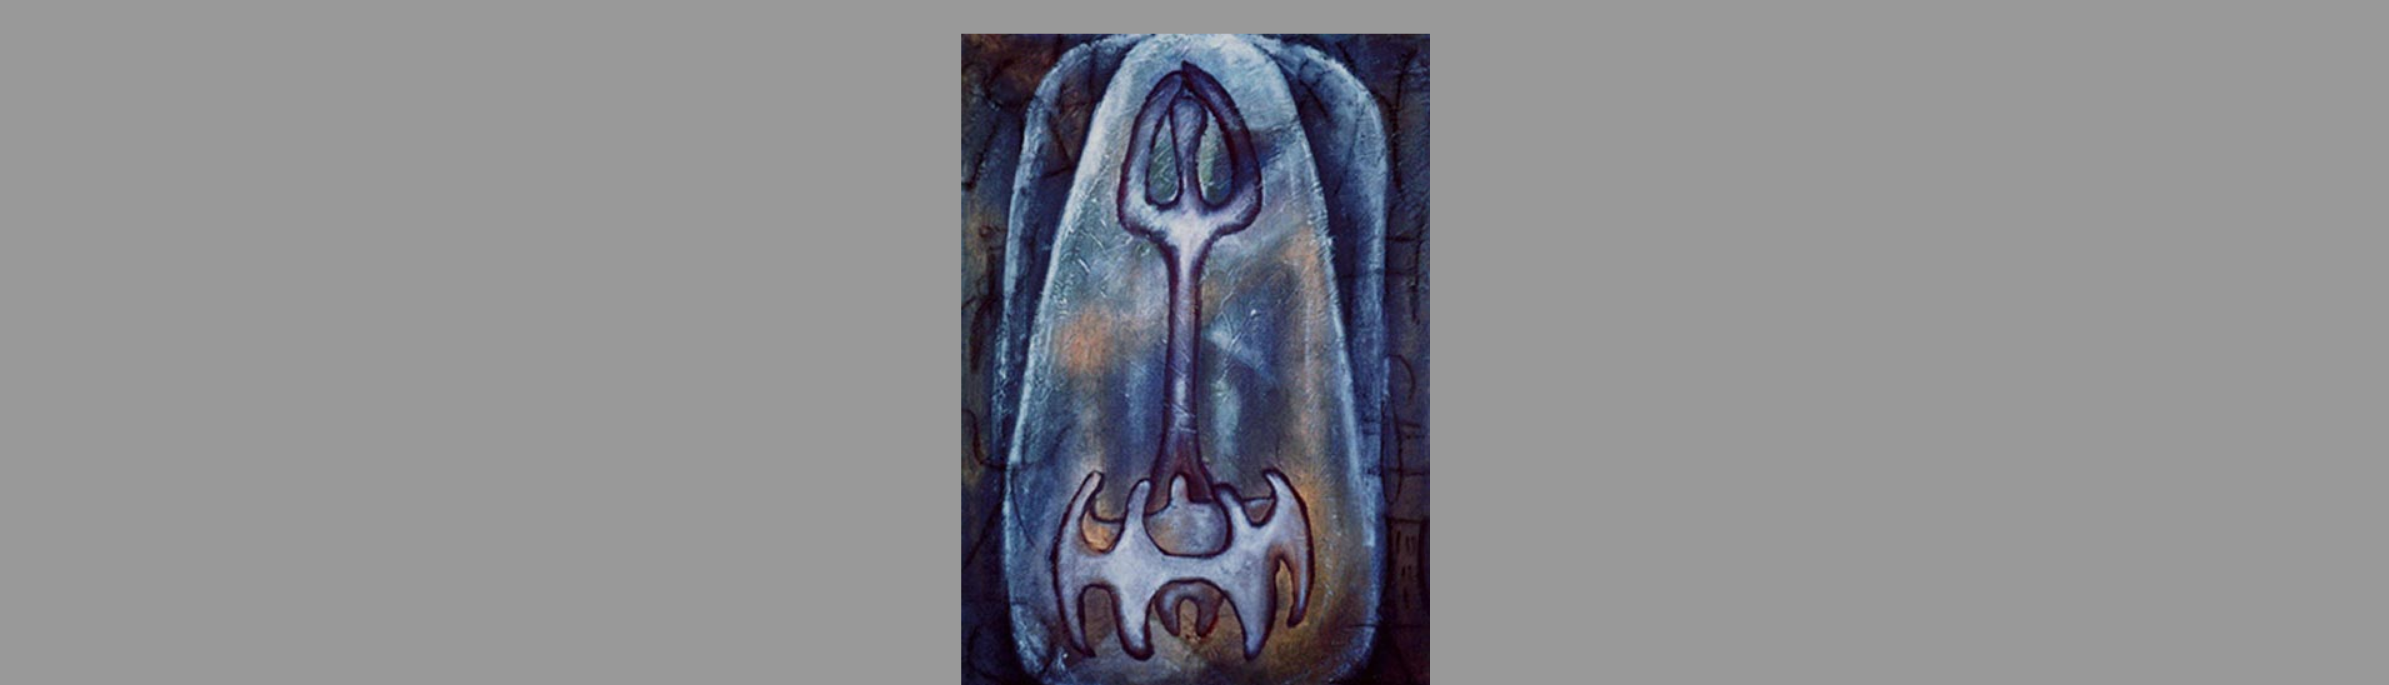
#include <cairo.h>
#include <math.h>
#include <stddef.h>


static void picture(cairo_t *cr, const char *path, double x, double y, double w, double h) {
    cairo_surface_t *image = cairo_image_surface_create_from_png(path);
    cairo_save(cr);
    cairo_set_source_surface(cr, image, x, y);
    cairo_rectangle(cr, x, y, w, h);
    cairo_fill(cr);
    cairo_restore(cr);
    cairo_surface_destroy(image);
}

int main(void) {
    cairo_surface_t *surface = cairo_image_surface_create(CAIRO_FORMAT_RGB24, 2389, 685);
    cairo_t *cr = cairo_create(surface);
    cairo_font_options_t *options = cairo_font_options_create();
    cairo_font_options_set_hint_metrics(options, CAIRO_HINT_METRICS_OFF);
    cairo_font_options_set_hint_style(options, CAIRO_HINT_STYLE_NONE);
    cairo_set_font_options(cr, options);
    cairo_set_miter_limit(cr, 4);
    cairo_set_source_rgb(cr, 0.6, 0.6, 0.6);
    cairo_paint(cr);
    picture(cr, "img1.png", 961, 33, 469, 652);
    cairo_surface_write_to_png(surface, "page.png");
    cairo_font_options_destroy(options);
    cairo_destroy(cr);
    cairo_surface_destroy(surface);
    return 0;
}
